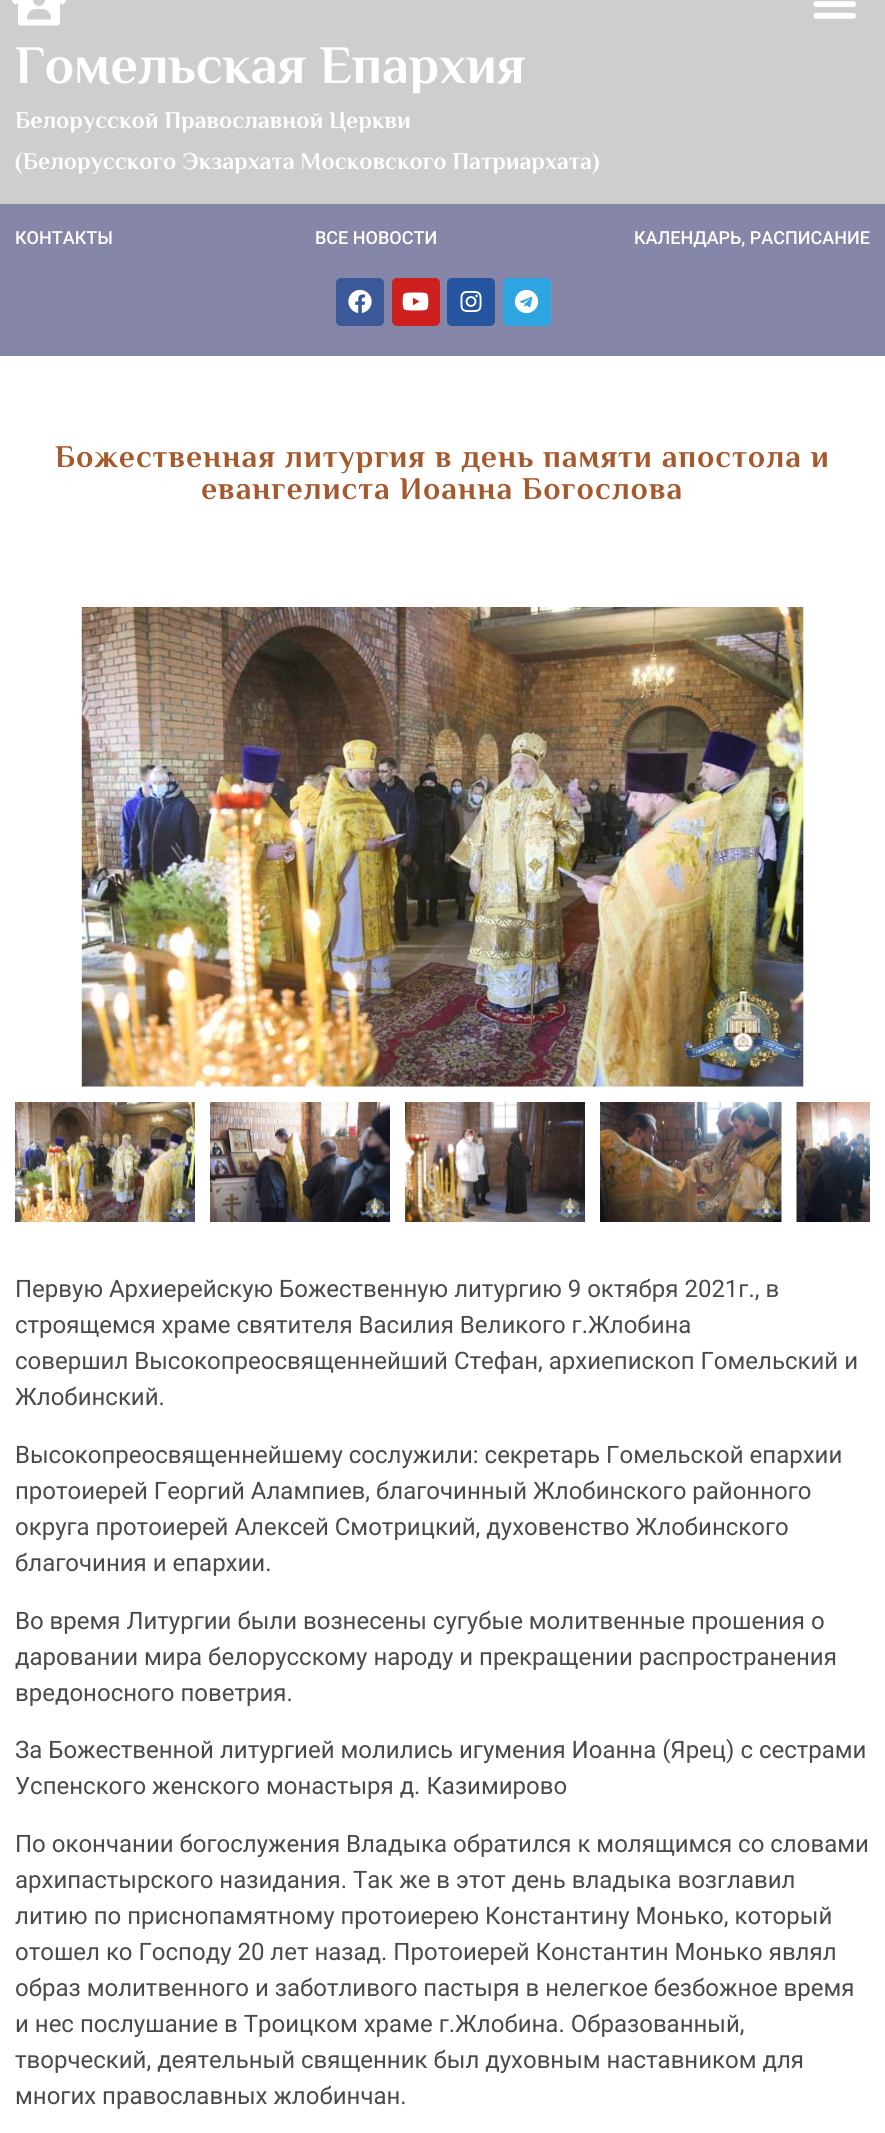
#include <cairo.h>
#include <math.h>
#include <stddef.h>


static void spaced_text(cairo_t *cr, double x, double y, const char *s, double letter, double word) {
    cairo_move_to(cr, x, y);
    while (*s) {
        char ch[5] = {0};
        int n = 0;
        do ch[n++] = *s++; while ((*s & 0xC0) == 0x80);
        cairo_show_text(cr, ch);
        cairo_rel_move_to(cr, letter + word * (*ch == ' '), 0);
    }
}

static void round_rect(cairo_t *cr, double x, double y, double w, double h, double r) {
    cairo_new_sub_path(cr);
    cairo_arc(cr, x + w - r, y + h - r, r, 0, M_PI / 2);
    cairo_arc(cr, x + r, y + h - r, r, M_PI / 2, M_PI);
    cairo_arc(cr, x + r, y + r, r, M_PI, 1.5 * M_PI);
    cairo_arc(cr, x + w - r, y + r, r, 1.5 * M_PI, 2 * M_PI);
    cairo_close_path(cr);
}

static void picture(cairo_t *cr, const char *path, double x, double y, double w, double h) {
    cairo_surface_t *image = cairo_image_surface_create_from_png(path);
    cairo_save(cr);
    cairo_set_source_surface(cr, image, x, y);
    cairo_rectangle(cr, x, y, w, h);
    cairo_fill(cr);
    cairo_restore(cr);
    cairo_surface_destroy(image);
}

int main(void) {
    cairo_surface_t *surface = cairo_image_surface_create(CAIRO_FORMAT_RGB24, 885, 2133);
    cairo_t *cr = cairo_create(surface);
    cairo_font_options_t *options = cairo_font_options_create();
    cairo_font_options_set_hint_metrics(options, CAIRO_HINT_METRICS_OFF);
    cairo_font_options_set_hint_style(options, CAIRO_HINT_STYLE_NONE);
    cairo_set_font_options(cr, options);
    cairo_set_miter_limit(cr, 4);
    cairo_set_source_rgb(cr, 1, 1, 1);
    cairo_paint(cr);
    cairo_set_source_rgb(cr, 0.808, 0.808, 0.808);
    cairo_rectangle(cr, 0, 0, 885, 204);
    cairo_fill(cr);
    picture(cr, "img1.png", 12, 0, 54, 26);
    picture(cr, "img2.png", 813, 1, 43, 18);
    cairo_select_font_face(cr, "Philosopher", CAIRO_FONT_SLANT_NORMAL, CAIRO_FONT_WEIGHT_BOLD);
    cairo_set_font_size(cr, 54);
    cairo_set_source_rgb(cr, 1, 1, 1);
    cairo_move_to(cr, 15, 83);
    cairo_show_text(cr, "Гомельская Епархия");
    cairo_set_font_size(cr, 24);
    cairo_move_to(cr, 15, 128);
    cairo_show_text(cr, "Белорусской Православной Церкви");
    cairo_move_to(cr, 15, 169);
    cairo_show_text(cr, "(Белорусского Экзархата Московского Патриархата)");
    cairo_set_source_rgb(cr, 0.525, 0.525, 0.659);
    cairo_rectangle(cr, 0, 204, 885, 152);
    cairo_fill(cr);
    cairo_select_font_face(cr, "Roboto Medium", CAIRO_FONT_SLANT_NORMAL, CAIRO_FONT_WEIGHT_NORMAL);
    cairo_set_font_size(cr, 18);
    cairo_set_source_rgb(cr, 1, 1, 1);
    cairo_move_to(cr, 15, 244);
    cairo_show_text(cr, "КОНТАКТЫ");
    cairo_move_to(cr, 315, 244);
    cairo_show_text(cr, "ВСЕ НОВОСТИ");
    cairo_move_to(cr, 634, 244);
    cairo_show_text(cr, "КАЛЕНДАРЬ, РАСПИСАНИЕ");
    cairo_set_source_rgb(cr, 0.231, 0.349, 0.596);
    round_rect(cr, 336, 278, 48, 48, 5);
    cairo_fill(cr);
    picture(cr, "img3.png", 348, 289, 24, 24);
    cairo_set_source_rgb(cr, 0.804, 0.125, 0.122);
    round_rect(cr, 392, 278, 48, 48, 5);
    cairo_fill(cr);
    picture(cr, "img4.png", 402, 292, 27, 19);
    cairo_set_source_rgb(cr, 0.149, 0.333, 0.627);
    round_rect(cr, 447, 278, 48, 48, 5);
    cairo_fill(cr);
    picture(cr, "img5.png", 460, 290, 22, 22);
    cairo_set_source_rgb(cr, 0.173, 0.647, 0.878);
    round_rect(cr, 503, 278, 48, 48, 5);
    cairo_fill(cr);
    picture(cr, "img6.png", 514, 289, 25, 25);
    cairo_select_font_face(cr, "Philosopher", CAIRO_FONT_SLANT_NORMAL, CAIRO_FONT_WEIGHT_BOLD);
    cairo_set_font_size(cr, 31.5);
    cairo_set_source_rgb(cr, 0.647, 0.349, 0.173);
    spaced_text(cr, 55, 467, "Божественная литургия в день памяти апостола и", 1.05, 0);
    spaced_text(cr, 201, 499, "евангелиста Иоанна Богослова", 1.05, 0);
    picture(cr, "img7.png", 81, 607, 723, 480);
    picture(cr, "img8.png", 15, 1102, 180, 120);
    picture(cr, "img9.png", 210, 1102, 180, 120);
    picture(cr, "img10.png", 405, 1102, 180, 120);
    picture(cr, "img11.png", 600, 1102, 182, 120);
    picture(cr, "img12.png", 796, 1102, 74, 120);
    cairo_select_font_face(cr, "Roboto", CAIRO_FONT_SLANT_NORMAL, CAIRO_FONT_WEIGHT_NORMAL);
    cairo_set_font_size(cr, 24);
    cairo_set_source_rgb(cr, 0.29, 0.29, 0.29);
    cairo_move_to(cr, 15, 1297);
    cairo_show_text(cr, "Первую Архиерейскую Божественную литургию 9 октября 2021г., в");
    cairo_move_to(cr, 15, 1333);
    cairo_show_text(cr, "строящемся храме святителя Василия Великого г.Жлобина");
    cairo_move_to(cr, 15, 1369);
    cairo_show_text(cr, "совершил Высокопреосвященнейший Стефан, архиепископ Гомельский и");
    cairo_move_to(cr, 15, 1405);
    cairo_show_text(cr, "Жлобинский.");
    cairo_move_to(cr, 15, 1463);
    cairo_show_text(cr, "Высокопреосвященнейшему сослужили: секретарь Гомельской епархии");
    cairo_move_to(cr, 15, 1499);
    cairo_show_text(cr, "протоиерей Георгий Алампиев, благочинный Жлобинского районного");
    cairo_move_to(cr, 15, 1535);
    cairo_show_text(cr, "округа протоиерей Алексей Смотрицкий, духовенство Жлобинского");
    cairo_move_to(cr, 15, 1571);
    cairo_show_text(cr, "благочиния и епархии.");
    cairo_move_to(cr, 15, 1629);
    cairo_show_text(cr, "Во время Литургии были вознесены сугубые молитвенные прошения о");
    cairo_move_to(cr, 15, 1665);
    cairo_show_text(cr, "даровании мира белорусскому народу и прекращении распространения");
    cairo_move_to(cr, 15, 1701);
    cairo_show_text(cr, "вредоносного поветрия.");
    cairo_move_to(cr, 15, 1758);
    cairo_show_text(cr, "За Божественной литургией молились игумения Иоанна (Ярец) с сестрами");
    cairo_move_to(cr, 15, 1794);
    cairo_show_text(cr, "Успенского женского монастыря д. Казимирово");
    cairo_move_to(cr, 15, 1852);
    cairo_show_text(cr, "По окончании богослужения Владыка обратился к молящимся со словами");
    cairo_move_to(cr, 15, 1888);
    cairo_show_text(cr, "архипастырского назидания. Так же в этот день владыка возглавил");
    cairo_move_to(cr, 15, 1924);
    cairo_show_text(cr, "литию по приснопамятному протоиерею Константину Монько, который");
    cairo_move_to(cr, 15, 1960);
    cairo_show_text(cr, "отошел ко Господу 20 лет назад. Протоиерей Константин Монько являл");
    cairo_move_to(cr, 15, 1996);
    cairo_show_text(cr, "образ молитвенного и заботливого пастыря в нелегкое безбожное время");
    cairo_move_to(cr, 15, 2032);
    cairo_show_text(cr, "и нес послушание в Троицком храме г.Жлобина. Образованный,");
    cairo_move_to(cr, 15, 2068);
    cairo_show_text(cr, "творческий, деятельный священник был духовным наставником для");
    cairo_move_to(cr, 15, 2104);
    cairo_show_text(cr, "многих православных жлобинчан.");
    cairo_surface_write_to_png(surface, "page.png");
    cairo_font_options_destroy(options);
    cairo_destroy(cr);
    cairo_surface_destroy(surface);
    return 0;
}
